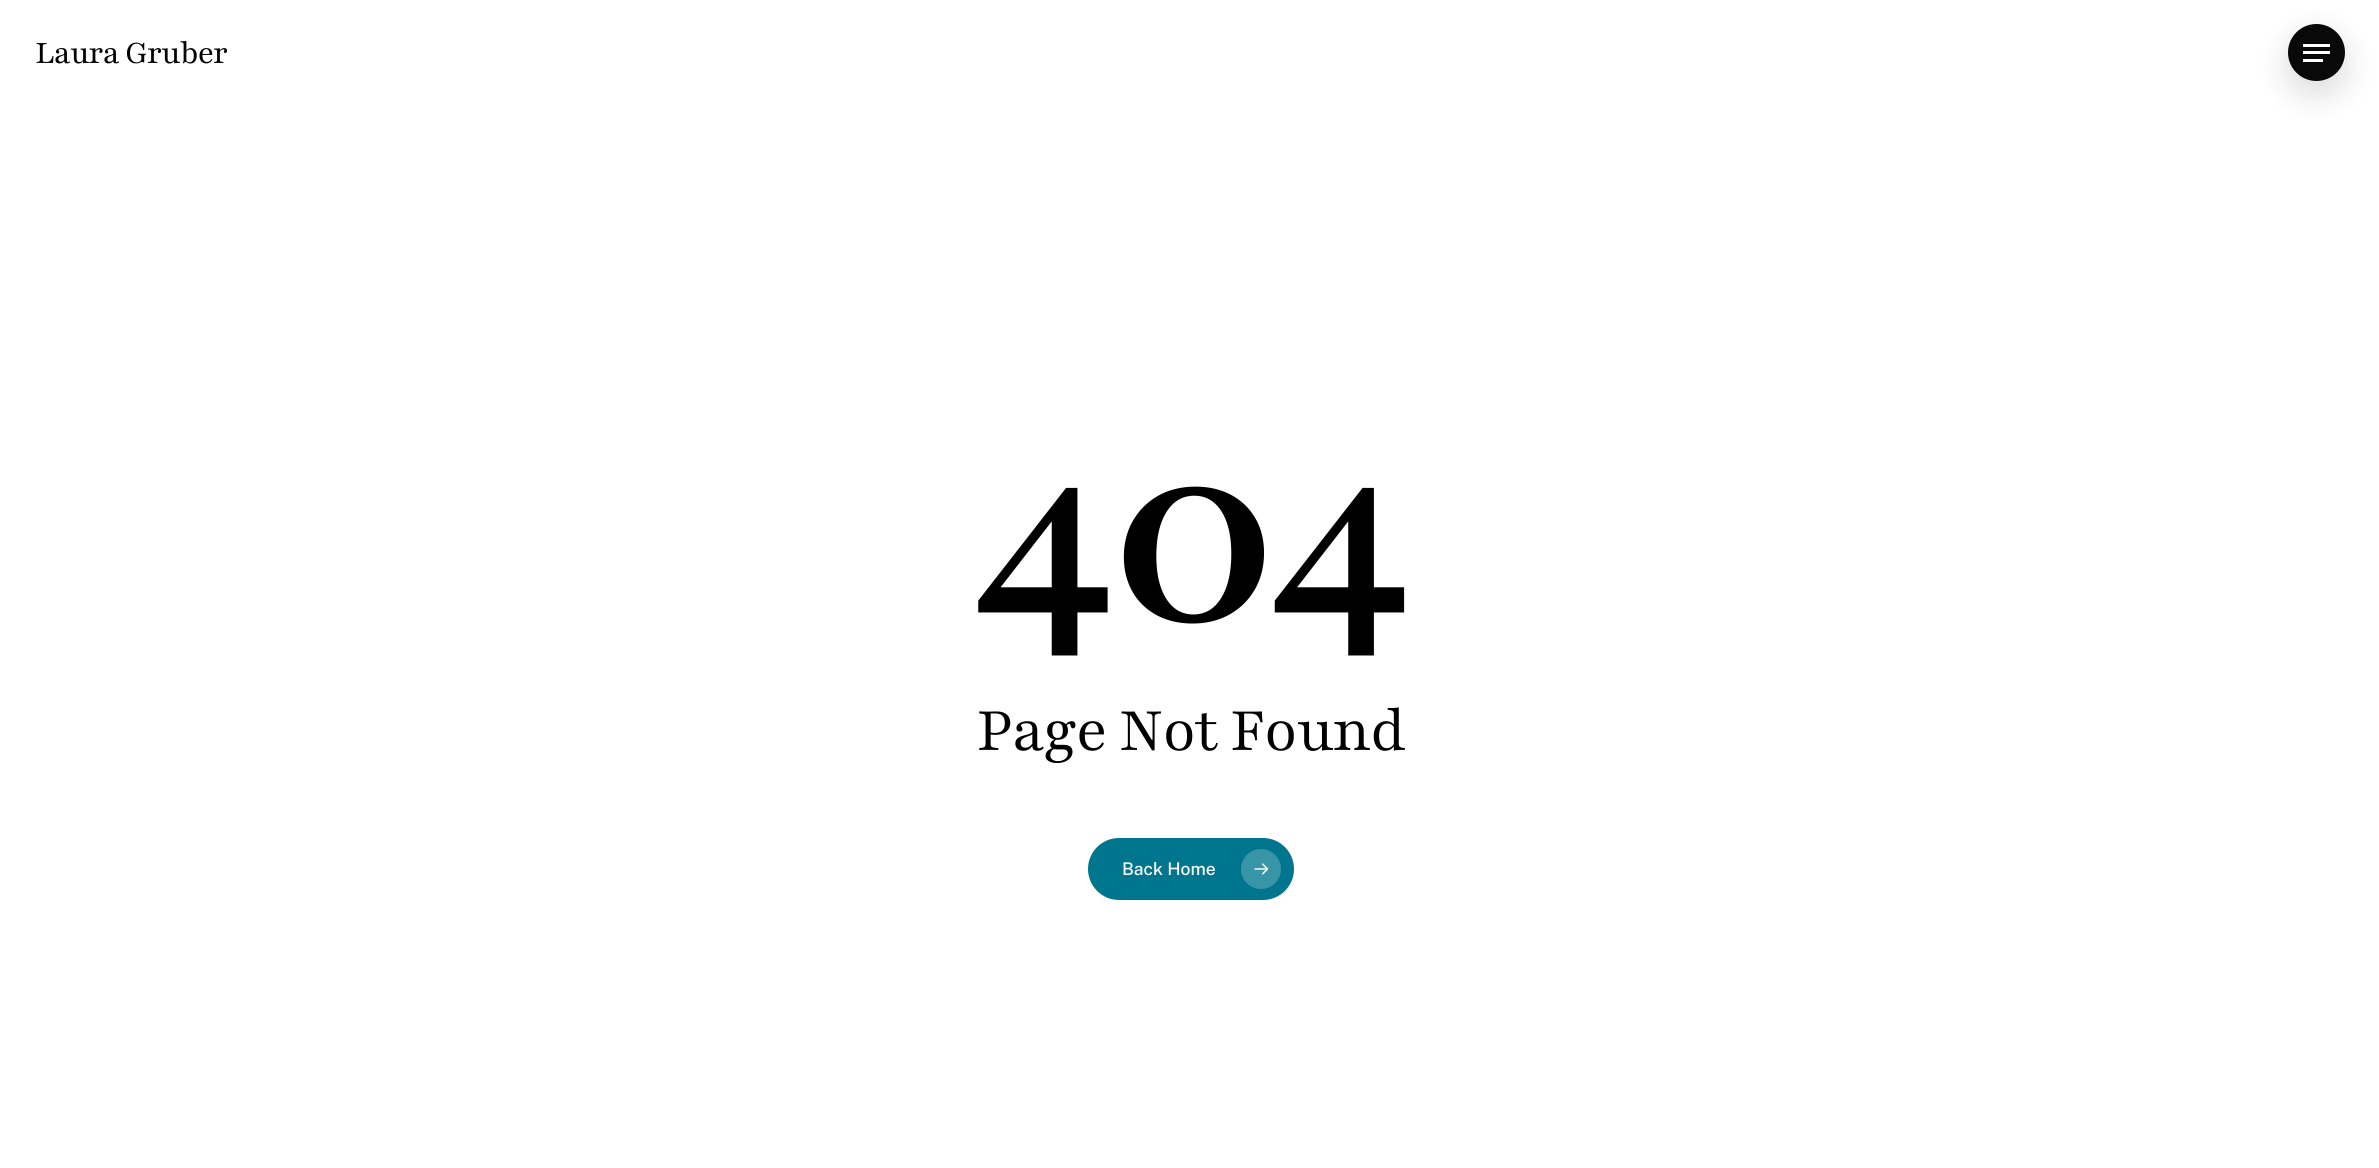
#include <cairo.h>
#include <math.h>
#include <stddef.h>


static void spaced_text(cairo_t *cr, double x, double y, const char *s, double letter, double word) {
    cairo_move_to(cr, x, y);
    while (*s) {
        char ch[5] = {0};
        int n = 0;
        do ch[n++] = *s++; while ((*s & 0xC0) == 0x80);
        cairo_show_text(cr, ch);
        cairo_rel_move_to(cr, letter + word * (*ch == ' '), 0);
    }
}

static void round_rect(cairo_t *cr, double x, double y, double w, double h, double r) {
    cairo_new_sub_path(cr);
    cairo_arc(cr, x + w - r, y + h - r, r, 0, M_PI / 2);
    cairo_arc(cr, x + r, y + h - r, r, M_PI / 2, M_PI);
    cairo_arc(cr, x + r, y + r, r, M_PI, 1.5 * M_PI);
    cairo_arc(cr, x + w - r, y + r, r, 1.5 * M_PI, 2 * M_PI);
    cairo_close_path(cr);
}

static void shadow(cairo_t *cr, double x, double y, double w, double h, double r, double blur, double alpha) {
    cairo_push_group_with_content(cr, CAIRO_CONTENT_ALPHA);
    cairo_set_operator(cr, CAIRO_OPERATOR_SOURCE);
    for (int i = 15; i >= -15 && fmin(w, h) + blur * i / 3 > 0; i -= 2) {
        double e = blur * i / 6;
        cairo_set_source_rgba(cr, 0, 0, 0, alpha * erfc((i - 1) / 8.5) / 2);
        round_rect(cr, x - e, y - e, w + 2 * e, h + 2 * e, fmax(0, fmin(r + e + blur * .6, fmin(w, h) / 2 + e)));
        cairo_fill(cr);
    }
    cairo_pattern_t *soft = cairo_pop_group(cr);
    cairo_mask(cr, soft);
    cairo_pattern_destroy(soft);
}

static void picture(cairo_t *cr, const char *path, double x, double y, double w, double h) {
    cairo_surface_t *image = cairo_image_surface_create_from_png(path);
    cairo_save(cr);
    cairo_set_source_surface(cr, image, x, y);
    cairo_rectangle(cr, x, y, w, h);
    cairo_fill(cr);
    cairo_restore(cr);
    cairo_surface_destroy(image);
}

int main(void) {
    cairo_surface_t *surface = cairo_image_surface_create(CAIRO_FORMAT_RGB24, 2379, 1168);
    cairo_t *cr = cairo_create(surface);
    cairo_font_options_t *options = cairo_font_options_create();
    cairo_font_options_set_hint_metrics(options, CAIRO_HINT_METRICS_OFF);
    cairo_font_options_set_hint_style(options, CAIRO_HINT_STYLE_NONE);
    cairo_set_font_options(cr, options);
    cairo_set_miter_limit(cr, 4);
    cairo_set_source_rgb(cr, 1, 1, 1);
    cairo_paint(cr);
    cairo_select_font_face(cr, "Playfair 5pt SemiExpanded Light", CAIRO_FONT_SLANT_NORMAL, CAIRO_FONT_WEIGHT_NORMAL);
    cairo_set_font_size(cr, 35);
    cairo_set_source_rgb(cr, 0, 0, 0);
    spaced_text(cr, 35, 63, "Laura Gruber", -1.25, 0);
    cairo_set_source_rgb(cr, 0, 0, 0);
    shadow(cr, 2288, 36, 57, 58, 28.5, 15.5, 0.13);
    cairo_set_source_rgb(cr, 0.039, 0.039, 0.039);
    cairo_arc(cr, 2316.5, 52.5, 28.5, 0, 2 * M_PI);
    cairo_fill(cr);
    cairo_set_source_rgb(cr, 1, 1, 1);
    cairo_rectangle(cr, 2303, 44, 27, 3);
    cairo_fill(cr);
    cairo_rectangle(cr, 2303, 59, 20, 3);
    cairo_fill(cr);
    cairo_rectangle(cr, 2303, 51, 27, 3);
    cairo_fill(cr);
    cairo_select_font_face(cr, "Playfair 5pt SemiExpanded Light SemiBold", CAIRO_FONT_SLANT_NORMAL, CAIRO_FONT_WEIGHT_NORMAL);
    cairo_set_font_size(cr, 312);
    cairo_set_source_rgb(cr, 0, 0, 0);
    spaced_text(cr, 975, 620, "404", -9.5, 0);
    cairo_select_font_face(cr, "Playfair 5pt SemiExpanded Light Light", CAIRO_FONT_SLANT_NORMAL, CAIRO_FONT_WEIGHT_NORMAL);
    cairo_set_font_size(cr, 67.5);
    spaced_text(cr, 976, 750, "Page Not Found", -2, 0);
    cairo_set_source_rgb(cr, 0, 0.463, 0.557);
    round_rect(cr, 1088, 838, 206, 62, 31);
    cairo_fill(cr);
    cairo_select_font_face(cr, "Public Sans Medium", CAIRO_FONT_SLANT_NORMAL, CAIRO_FONT_WEIGHT_NORMAL);
    cairo_set_font_size(cr, 17.5);
    cairo_set_source_rgb(cr, 1, 1, 1);
    cairo_move_to(cr, 1122, 875);
    cairo_show_text(cr, "Back Home");
    cairo_set_source_rgb(cr, 0.22, 0.58, 0.655);
    cairo_new_path(cr);
    cairo_arc(cr, 1261, 869, 20, 0, 2 * M_PI);
    cairo_fill(cr);
    picture(cr, "img1.png", 1254, 863, 15, 12);
    cairo_surface_write_to_png(surface, "page.png");
    cairo_font_options_destroy(options);
    cairo_destroy(cr);
    cairo_surface_destroy(surface);
    return 0;
}
